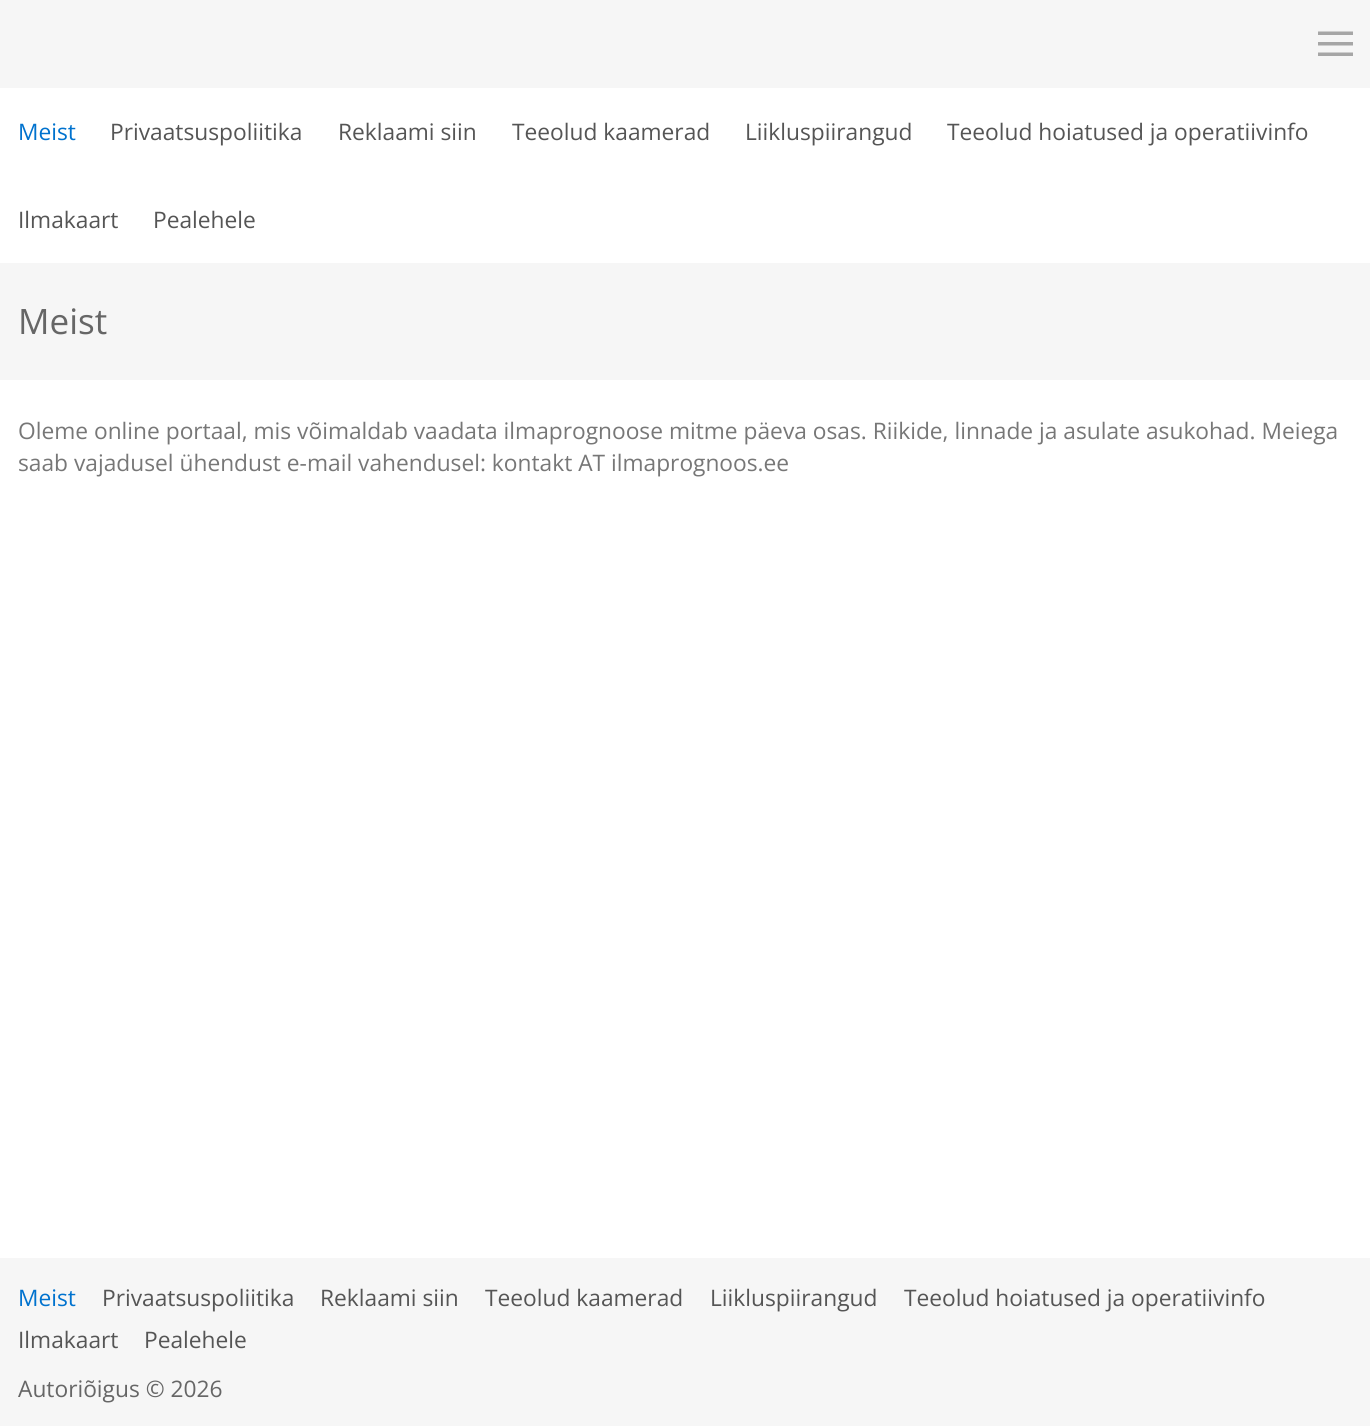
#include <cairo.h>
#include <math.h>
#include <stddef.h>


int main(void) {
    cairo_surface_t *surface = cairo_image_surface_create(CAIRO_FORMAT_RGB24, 1370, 1426);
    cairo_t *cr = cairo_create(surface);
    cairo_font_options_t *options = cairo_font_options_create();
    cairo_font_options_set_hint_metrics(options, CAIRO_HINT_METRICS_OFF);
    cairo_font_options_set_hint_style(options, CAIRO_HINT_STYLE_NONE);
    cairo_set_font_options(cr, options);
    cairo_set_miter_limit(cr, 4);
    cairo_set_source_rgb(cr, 1, 1, 1);
    cairo_paint(cr);
    cairo_set_source_rgb(cr, 0.961, 0.961, 0.961);
    cairo_rectangle(cr, 0, 0, 1370, 88);
    cairo_fill(cr);
    cairo_set_source_rgb(cr, 0.651, 0.651, 0.651);
    cairo_new_path(cr);
    cairo_move_to(cr, 1318, 31.5);
    cairo_line_to(cr, 1318, 35);
    cairo_line_to(cr, 1353, 35);
    cairo_line_to(cr, 1353, 31.5);
    cairo_close_path(cr);
    cairo_move_to(cr, 1318, 42);
    cairo_line_to(cr, 1318, 45.5);
    cairo_line_to(cr, 1353, 45.5);
    cairo_line_to(cr, 1353, 42);
    cairo_close_path(cr);
    cairo_move_to(cr, 1318, 52.5);
    cairo_line_to(cr, 1318, 56);
    cairo_line_to(cr, 1353, 56);
    cairo_line_to(cr, 1353, 52.5);
    cairo_close_path(cr);
    cairo_fill(cr);
    cairo_select_font_face(cr, "Open Sans", CAIRO_FONT_SLANT_NORMAL, CAIRO_FONT_WEIGHT_NORMAL);
    cairo_set_font_size(cr, 22.75);
    cairo_set_source_rgb(cr, 0, 0.447, 0.808);
    cairo_move_to(cr, 18, 140);
    cairo_show_text(cr, "Meist");
    cairo_set_source_rgb(cr, 0.333, 0.333, 0.333);
    cairo_move_to(cr, 110, 140);
    cairo_show_text(cr, "Privaatsuspoliitika");
    cairo_move_to(cr, 338, 140);
    cairo_show_text(cr, "Reklaami siin");
    cairo_move_to(cr, 512, 140);
    cairo_show_text(cr, "Teeolud kaamerad");
    cairo_move_to(cr, 745, 140);
    cairo_show_text(cr, "Liikluspiirangud");
    cairo_move_to(cr, 947, 140);
    cairo_show_text(cr, "Teeolud hoiatused ja operatiivinfo");
    cairo_move_to(cr, 18, 228);
    cairo_show_text(cr, "Ilmakaart");
    cairo_move_to(cr, 153, 228);
    cairo_show_text(cr, "Pealehele");
    cairo_set_source_rgb(cr, 0.961, 0.961, 0.961);
    cairo_rectangle(cr, 0, 263, 1370, 117);
    cairo_fill(cr);
    cairo_set_font_size(cr, 35);
    cairo_set_source_rgb(cr, 0.4, 0.4, 0.4);
    cairo_move_to(cr, 18, 334);
    cairo_show_text(cr, "Meist");
    cairo_set_font_size(cr, 22.75);
    cairo_set_source_rgb(cr, 0.467, 0.467, 0.467);
    cairo_move_to(cr, 18, 439);
    cairo_show_text(cr, "Oleme online portaal, mis võimaldab vaadata ilmaprognoose mitme päeva osas. Riikide, linnade ja asulate asukohad. Meiega");
    cairo_move_to(cr, 18, 471);
    cairo_show_text(cr, "saab vajadusel ühendust e-mail vahendusel: kontakt AT ilmaprognoos.ee");
    cairo_set_source_rgb(cr, 0.961, 0.961, 0.961);
    cairo_rectangle(cr, 0, 1258, 1370, 168);
    cairo_fill(cr);
    cairo_set_source_rgb(cr, 0, 0.447, 0.808);
    cairo_move_to(cr, 18, 1306);
    cairo_show_text(cr, "Meist");
    cairo_set_source_rgb(cr, 0.333, 0.333, 0.333);
    cairo_move_to(cr, 102, 1306);
    cairo_show_text(cr, "Privaatsuspoliitika");
    cairo_move_to(cr, 320, 1306);
    cairo_show_text(cr, "Reklaami siin");
    cairo_move_to(cr, 485, 1306);
    cairo_show_text(cr, "Teeolud kaamerad");
    cairo_move_to(cr, 710, 1306);
    cairo_show_text(cr, "Liikluspiirangud");
    cairo_move_to(cr, 904, 1306);
    cairo_show_text(cr, "Teeolud hoiatused ja operatiivinfo");
    cairo_move_to(cr, 18, 1348);
    cairo_show_text(cr, "Ilmakaart");
    cairo_move_to(cr, 144, 1348);
    cairo_show_text(cr, "Pealehele");
    cairo_set_source_rgb(cr, 0.4, 0.4, 0.4);
    cairo_move_to(cr, 18, 1397);
    cairo_show_text(cr, "Autoriõigus © 2026");
    cairo_surface_write_to_png(surface, "page.png");
    cairo_font_options_destroy(options);
    cairo_destroy(cr);
    cairo_surface_destroy(surface);
    return 0;
}
